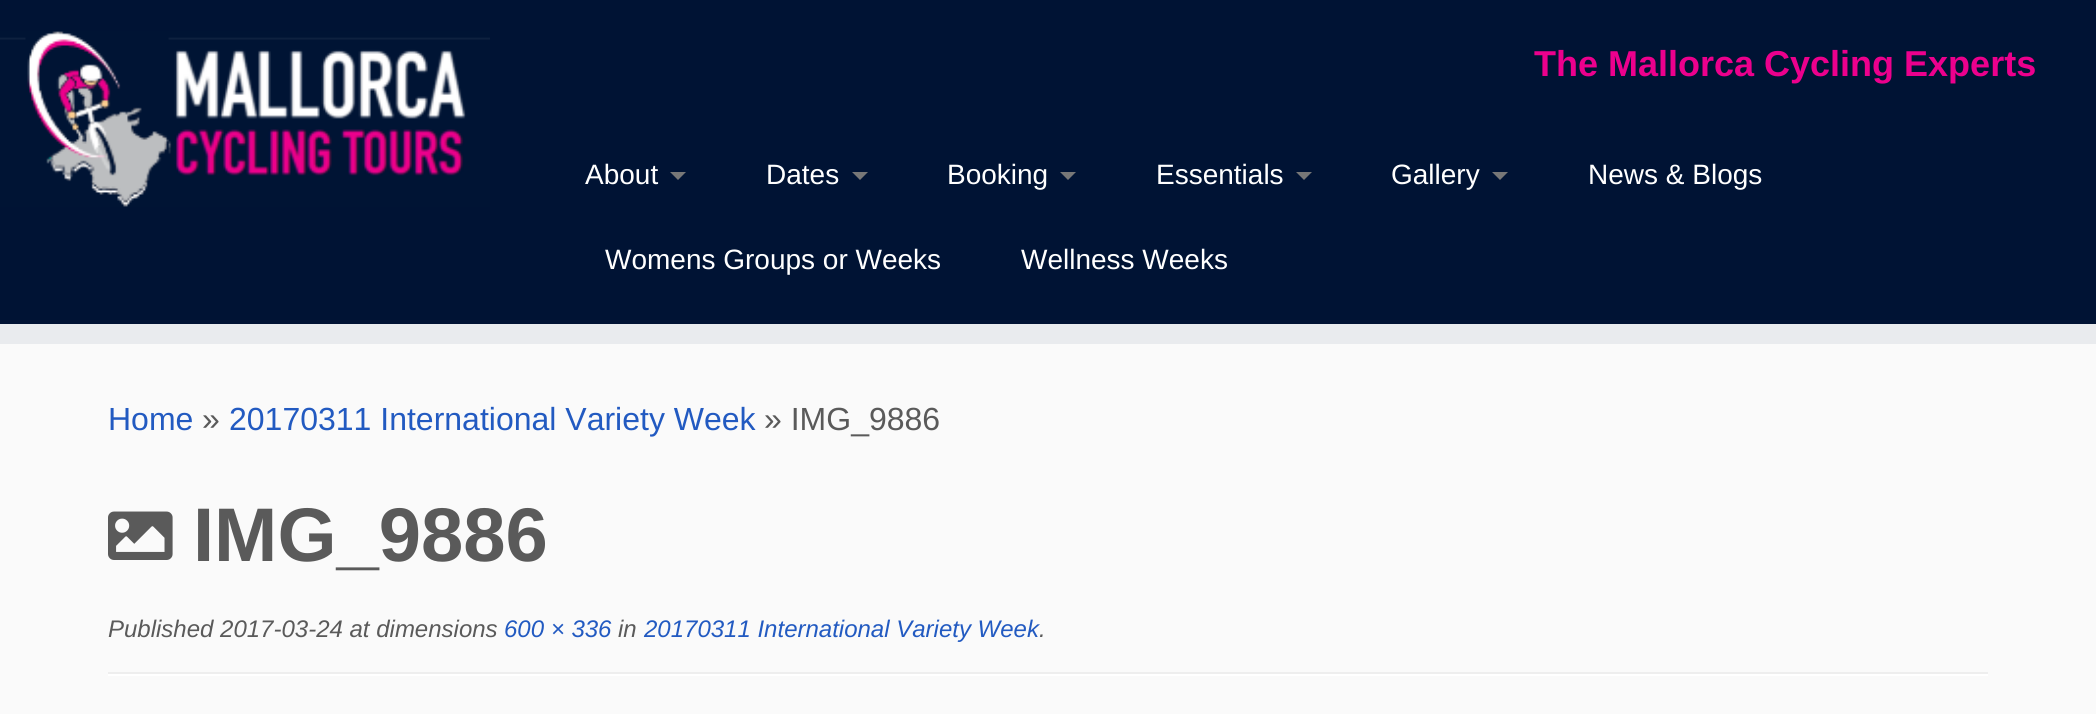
#include <cairo.h>
#include <math.h>
#include <stddef.h>


static void picture(cairo_t *cr, const char *path, double x, double y, double w, double h) {
    cairo_surface_t *image = cairo_image_surface_create_from_png(path);
    cairo_save(cr);
    cairo_set_source_surface(cr, image, x, y);
    cairo_rectangle(cr, x, y, w, h);
    cairo_fill(cr);
    cairo_restore(cr);
    cairo_surface_destroy(image);
}

int main(void) {
    cairo_surface_t *surface = cairo_image_surface_create(CAIRO_FORMAT_RGB24, 2096, 714);
    cairo_t *cr = cairo_create(surface);
    cairo_font_options_t *options = cairo_font_options_create();
    cairo_font_options_set_hint_metrics(options, CAIRO_HINT_METRICS_OFF);
    cairo_font_options_set_hint_style(options, CAIRO_HINT_STYLE_NONE);
    cairo_set_font_options(cr, options);
    cairo_set_miter_limit(cr, 4);
    cairo_set_source_rgb(cr, 0.98, 0.98, 0.98);
    cairo_paint(cr);
    cairo_set_source_rgb(cr, 0, 0.078, 0.204);
    cairo_rectangle(cr, 0, 0, 2096, 324);
    cairo_fill(cr);
    cairo_set_source_rgb(cr, 0.914, 0.918, 0.933);
    cairo_rectangle(cr, 0, 324, 2096, 20);
    cairo_fill(cr);
    picture(cr, "img1.png", 0, 31, 490, 176);
    cairo_select_font_face(cr, "Liberation Sans", CAIRO_FONT_SLANT_NORMAL, CAIRO_FONT_WEIGHT_BOLD);
    cairo_set_font_size(cr, 36);
    cairo_set_source_rgb(cr, 0.925, 0, 0.553);
    cairo_move_to(cr, 1534, 76);
    cairo_show_text(cr, "The Mallorca Cycling Experts");
    cairo_select_font_face(cr, "Liberation Sans", CAIRO_FONT_SLANT_NORMAL, CAIRO_FONT_WEIGHT_NORMAL);
    cairo_set_font_size(cr, 28);
    cairo_set_source_rgb(cr, 1, 1, 1);
    cairo_move_to(cr, 585, 184);
    cairo_show_text(cr, "About");
    cairo_set_source_rgb(cr, 0.467, 0.467, 0.467);
    cairo_new_path(cr);
    cairo_move_to(cr, 670, 172);
    cairo_line_to(cr, 686, 172);
    cairo_line_to(cr, 678, 180);
    cairo_close_path(cr);
    cairo_fill(cr);
    cairo_set_source_rgb(cr, 1, 1, 1);
    cairo_move_to(cr, 766, 184);
    cairo_show_text(cr, "Dates");
    cairo_set_source_rgb(cr, 0.467, 0.467, 0.467);
    cairo_new_path(cr);
    cairo_move_to(cr, 852, 172);
    cairo_line_to(cr, 868, 172);
    cairo_line_to(cr, 860, 180);
    cairo_close_path(cr);
    cairo_fill(cr);
    cairo_set_source_rgb(cr, 1, 1, 1);
    cairo_move_to(cr, 947, 184);
    cairo_show_text(cr, "Booking");
    cairo_set_source_rgb(cr, 0.467, 0.467, 0.467);
    cairo_new_path(cr);
    cairo_move_to(cr, 1060, 172);
    cairo_line_to(cr, 1076, 172);
    cairo_line_to(cr, 1068, 180);
    cairo_close_path(cr);
    cairo_fill(cr);
    cairo_set_source_rgb(cr, 1, 1, 1);
    cairo_move_to(cr, 1156, 184);
    cairo_show_text(cr, "Essentials");
    cairo_set_source_rgb(cr, 0.467, 0.467, 0.467);
    cairo_new_path(cr);
    cairo_move_to(cr, 1296, 172);
    cairo_line_to(cr, 1312, 172);
    cairo_line_to(cr, 1304, 180);
    cairo_close_path(cr);
    cairo_fill(cr);
    cairo_set_source_rgb(cr, 1, 1, 1);
    cairo_move_to(cr, 1391, 184);
    cairo_show_text(cr, "Gallery");
    cairo_set_source_rgb(cr, 0.467, 0.467, 0.467);
    cairo_new_path(cr);
    cairo_move_to(cr, 1492, 172);
    cairo_line_to(cr, 1508, 172);
    cairo_line_to(cr, 1500, 180);
    cairo_close_path(cr);
    cairo_fill(cr);
    cairo_set_source_rgb(cr, 1, 1, 1);
    cairo_move_to(cr, 1588, 184);
    cairo_show_text(cr, "News & Blogs");
    cairo_move_to(cr, 605, 269);
    cairo_show_text(cr, "Womens Groups or Weeks");
    cairo_move_to(cr, 1021, 269);
    cairo_show_text(cr, "Wellness Weeks");
    cairo_set_font_size(cr, 32);
    cairo_set_source_rgb(cr, 0.133, 0.353, 0.757);
    cairo_move_to(cr, 108, 430);
    cairo_show_text(cr, "Home");
    cairo_set_source_rgb(cr, 0.353, 0.353, 0.353);
    cairo_move_to(cr, 202, 430);
    cairo_show_text(cr, "»");
    cairo_set_source_rgb(cr, 0.133, 0.353, 0.757);
    cairo_move_to(cr, 229, 430);
    cairo_show_text(cr, "20170311 International Variety Week");
    cairo_set_source_rgb(cr, 0.353, 0.353, 0.353);
    cairo_move_to(cr, 764, 430);
    cairo_show_text(cr, "» IMG_9886");
    picture(cr, "img2.png", 108, 511, 65, 49);
    cairo_select_font_face(cr, "Liberation Sans", CAIRO_FONT_SLANT_NORMAL, CAIRO_FONT_WEIGHT_BOLD);
    cairo_set_font_size(cr, 76);
    cairo_move_to(cr, 193, 561);
    cairo_show_text(cr, "IMG_9886");
    cairo_select_font_face(cr, "Liberation Sans", CAIRO_FONT_SLANT_ITALIC, CAIRO_FONT_WEIGHT_NORMAL);
    cairo_set_font_size(cr, 24);
    cairo_move_to(cr, 108, 637);
    cairo_show_text(cr, "Published 2017-03-24 at dimensions");
    cairo_set_source_rgb(cr, 0.133, 0.353, 0.757);
    cairo_move_to(cr, 504, 637);
    cairo_show_text(cr, "600 × 336");
    cairo_set_source_rgb(cr, 0.353, 0.353, 0.353);
    cairo_move_to(cr, 618, 637);
    cairo_show_text(cr, "in");
    cairo_set_source_rgb(cr, 0.133, 0.353, 0.757);
    cairo_move_to(cr, 644, 637);
    cairo_show_text(cr, "20170311 International Variety Week");
    cairo_set_source_rgb(cr, 0.353, 0.353, 0.353);
    cairo_move_to(cr, 1039, 637);
    cairo_show_text(cr, ".");
    cairo_set_source_rgb(cr, 0.933, 0.933, 0.933);
    cairo_rectangle(cr, 108, 672, 1880, 2);
    cairo_fill(cr);
    cairo_set_source_rgb(cr, 1, 1, 1);
    cairo_rectangle(cr, 108, 674, 1880, 2);
    cairo_fill(cr);
    cairo_surface_write_to_png(surface, "page.png");
    cairo_font_options_destroy(options);
    cairo_destroy(cr);
    cairo_surface_destroy(surface);
    return 0;
}
